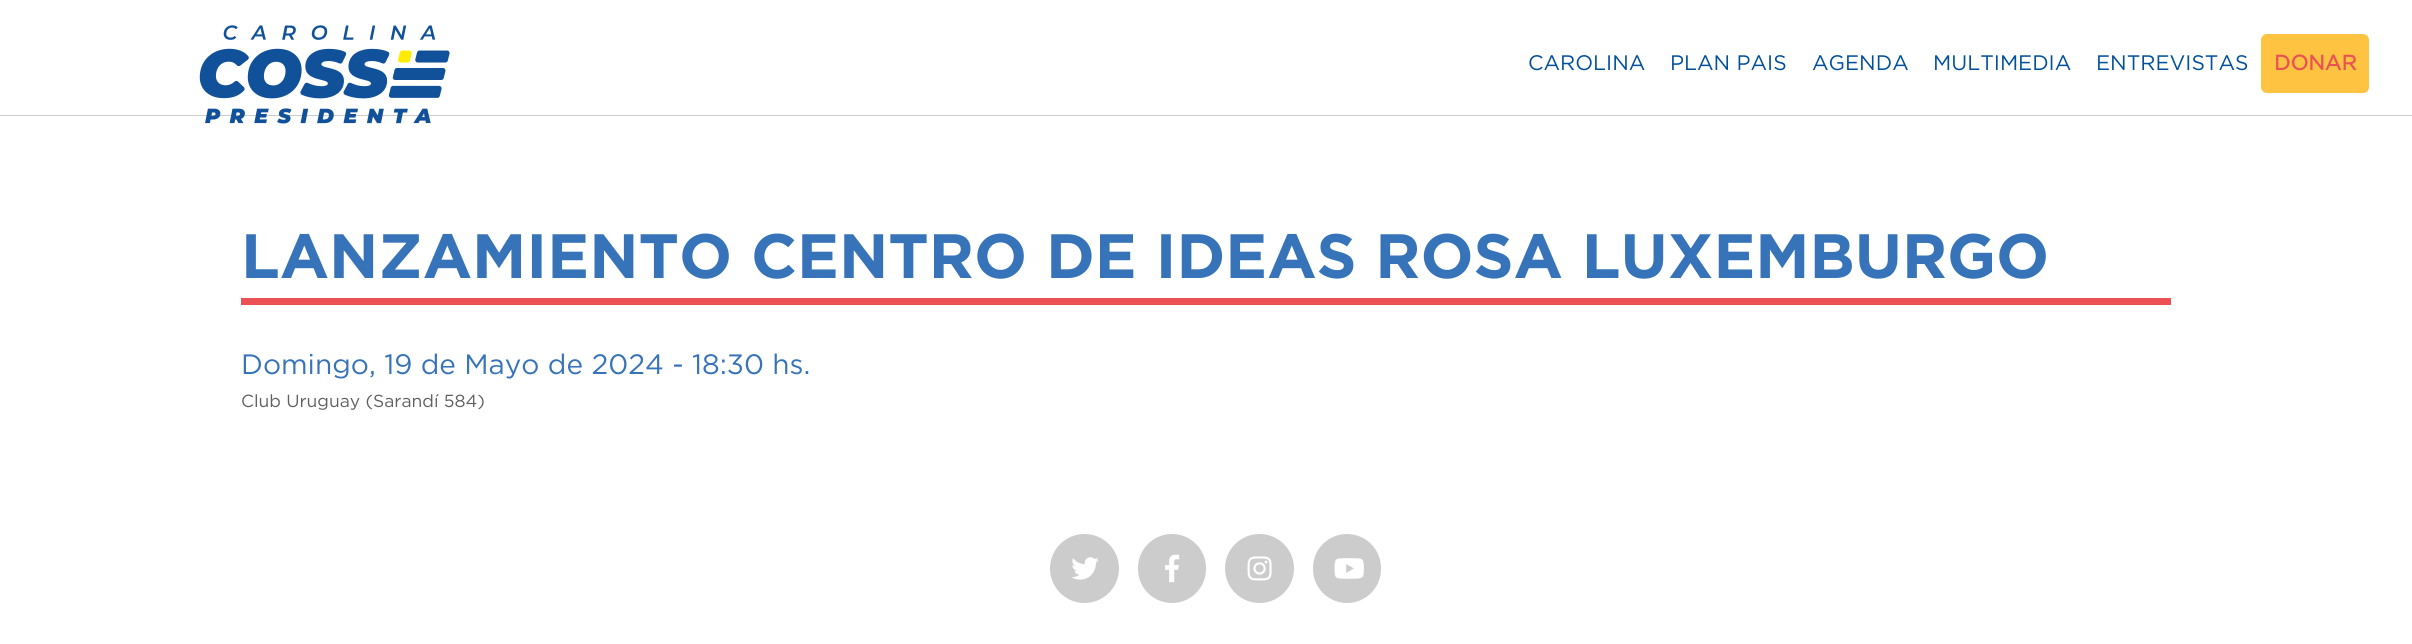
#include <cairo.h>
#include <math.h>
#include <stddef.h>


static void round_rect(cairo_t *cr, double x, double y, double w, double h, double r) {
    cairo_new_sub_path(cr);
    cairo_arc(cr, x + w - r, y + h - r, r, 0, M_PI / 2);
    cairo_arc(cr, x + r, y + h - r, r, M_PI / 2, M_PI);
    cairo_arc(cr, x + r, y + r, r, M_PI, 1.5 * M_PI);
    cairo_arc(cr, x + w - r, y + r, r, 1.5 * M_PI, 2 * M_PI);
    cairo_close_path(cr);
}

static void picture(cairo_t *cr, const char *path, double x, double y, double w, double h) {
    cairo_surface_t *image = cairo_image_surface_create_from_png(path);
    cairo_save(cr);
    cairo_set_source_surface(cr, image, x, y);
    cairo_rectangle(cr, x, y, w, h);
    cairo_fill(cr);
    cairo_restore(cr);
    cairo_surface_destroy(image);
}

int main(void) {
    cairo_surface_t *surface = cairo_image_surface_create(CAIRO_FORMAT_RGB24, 2412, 644);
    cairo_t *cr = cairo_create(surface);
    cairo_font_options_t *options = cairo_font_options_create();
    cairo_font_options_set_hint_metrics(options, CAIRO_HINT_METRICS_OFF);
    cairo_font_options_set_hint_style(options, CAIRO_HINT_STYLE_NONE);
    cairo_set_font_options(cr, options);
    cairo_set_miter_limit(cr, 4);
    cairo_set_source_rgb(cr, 1, 1, 1);
    cairo_paint(cr);
    cairo_set_source_rgb(cr, 0.8, 0.8, 0.8);
    cairo_rectangle(cr, 0, 115, 2412, 1);
    cairo_fill(cr);
    picture(cr, "img1.png", 199, 25, 251, 99);
    cairo_select_font_face(cr, "Gotham", CAIRO_FONT_SLANT_NORMAL, CAIRO_FONT_WEIGHT_NORMAL);
    cairo_set_font_size(cr, 21);
    cairo_set_source_rgb(cr, 0, 0.31, 0.604);
    cairo_move_to(cr, 1528, 70);
    cairo_show_text(cr, "CAROLINA");
    cairo_move_to(cr, 1670, 70);
    cairo_show_text(cr, "PLAN PAIS");
    cairo_move_to(cr, 1812, 70);
    cairo_show_text(cr, "AGENDA");
    cairo_move_to(cr, 1933, 70);
    cairo_show_text(cr, "MULTIMEDIA");
    cairo_move_to(cr, 2096, 70);
    cairo_show_text(cr, "ENTREVISTAS");
    cairo_set_source_rgb(cr, 0.996, 0.765, 0.251);
    round_rect(cr, 2261, 34, 108, 59, 6);
    cairo_fill(cr);
    cairo_select_font_face(cr, "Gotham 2", CAIRO_FONT_SLANT_NORMAL, CAIRO_FONT_WEIGHT_BOLD);
    cairo_set_source_rgb(cr, 0.918, 0.318, 0.329);
    cairo_move_to(cr, 2274, 70);
    cairo_show_text(cr, "DONAR");
    cairo_rectangle(cr, 241, 298, 1930, 7);
    cairo_fill(cr);
    cairo_select_font_face(cr, "Gotham", CAIRO_FONT_SLANT_NORMAL, CAIRO_FONT_WEIGHT_BOLD);
    cairo_set_font_size(cr, 62.5);
    cairo_set_source_rgb(cr, 0.216, 0.451, 0.725);
    cairo_move_to(cr, 241, 278);
    cairo_show_text(cr, "LANZAMIENTO CENTRO DE IDEAS ROSA LUXEMBURGO");
    cairo_select_font_face(cr, "Gotham", CAIRO_FONT_SLANT_NORMAL, CAIRO_FONT_WEIGHT_NORMAL);
    cairo_set_font_size(cr, 28);
    cairo_move_to(cr, 241, 374);
    cairo_show_text(cr, "Domingo, 19 de Mayo de 2024 - 18:30 hs.");
    cairo_set_font_size(cr, 17.5);
    cairo_set_source_rgb(cr, 0.376, 0.376, 0.376);
    cairo_move_to(cr, 241, 407);
    cairo_show_text(cr, "Club Uruguay (Sarandí 584)");
    cairo_set_source_rgb(cr, 0.8, 0.8, 0.8);
    cairo_new_path(cr);
    cairo_arc(cr, 1084.5, 568.5, 34.5, 0, 2 * M_PI);
    cairo_fill(cr);
    picture(cr, "img2.png", 1071, 557, 28, 23);
    round_rect(cr, 1138, 534, 68, 69, 34);
    cairo_fill(cr);
    picture(cr, "img3.png", 1165, 554, 15, 29);
    cairo_arc(cr, 1259.5, 568.5, 34.5, 0, 2 * M_PI);
    cairo_fill(cr);
    picture(cr, "img4.png", 1247, 556, 25, 25);
    round_rect(cr, 1313, 534, 68, 69, 34);
    cairo_fill(cr);
    picture(cr, "img5.png", 1334, 558, 30, 21);
    cairo_surface_write_to_png(surface, "page.png");
    cairo_font_options_destroy(options);
    cairo_destroy(cr);
    cairo_surface_destroy(surface);
    return 0;
}
